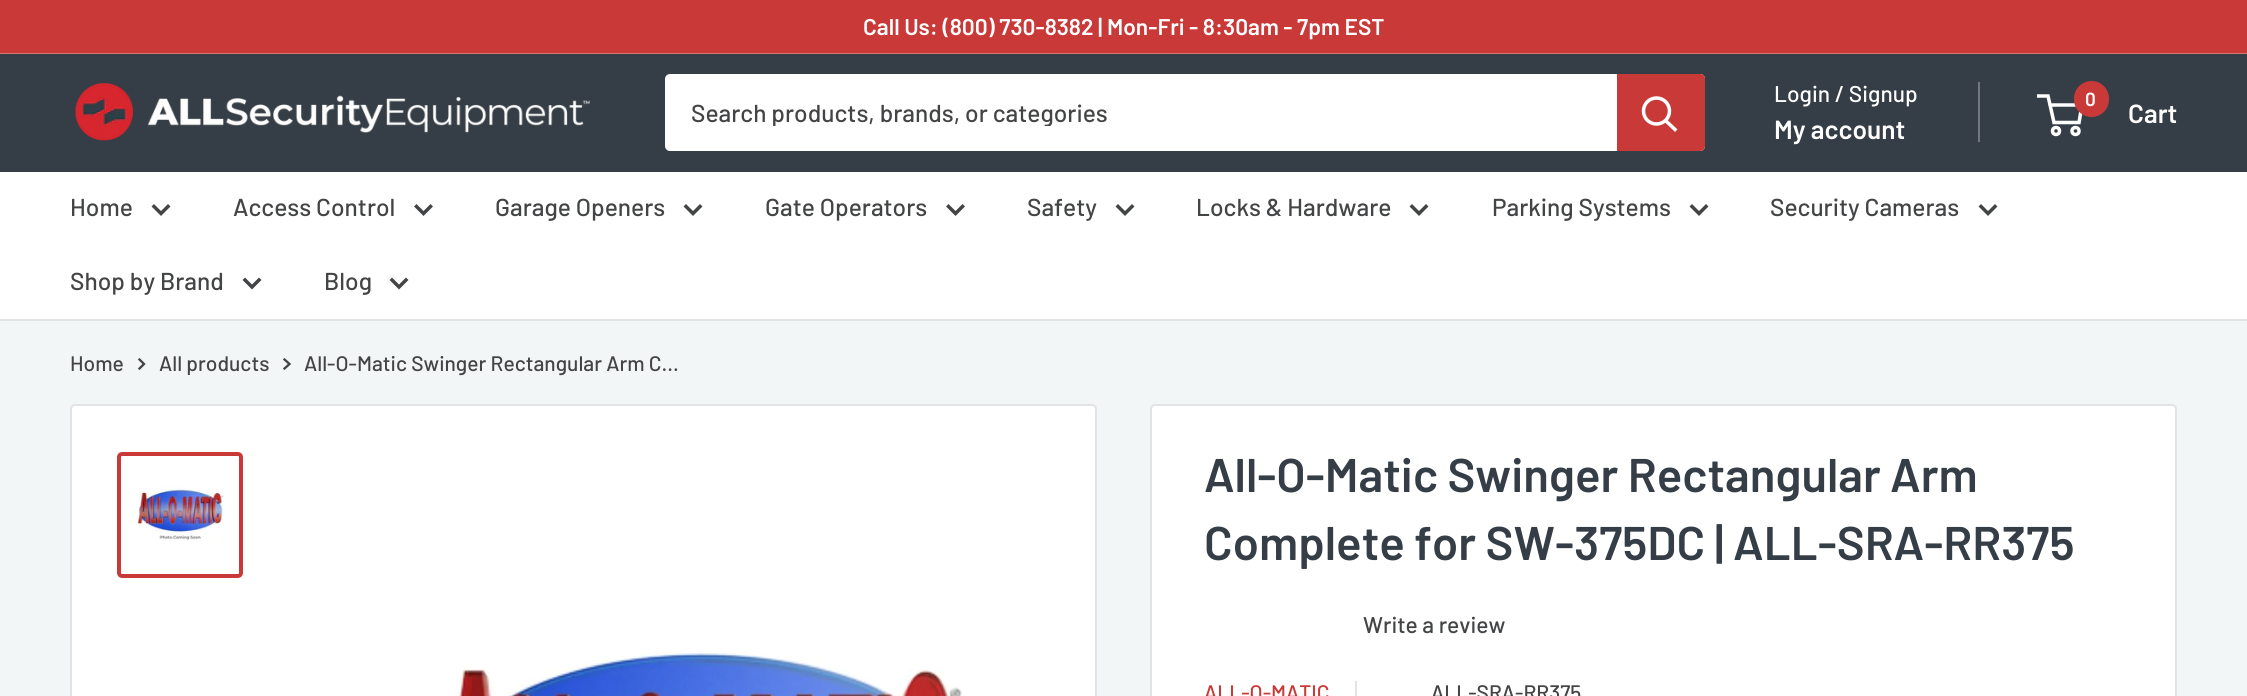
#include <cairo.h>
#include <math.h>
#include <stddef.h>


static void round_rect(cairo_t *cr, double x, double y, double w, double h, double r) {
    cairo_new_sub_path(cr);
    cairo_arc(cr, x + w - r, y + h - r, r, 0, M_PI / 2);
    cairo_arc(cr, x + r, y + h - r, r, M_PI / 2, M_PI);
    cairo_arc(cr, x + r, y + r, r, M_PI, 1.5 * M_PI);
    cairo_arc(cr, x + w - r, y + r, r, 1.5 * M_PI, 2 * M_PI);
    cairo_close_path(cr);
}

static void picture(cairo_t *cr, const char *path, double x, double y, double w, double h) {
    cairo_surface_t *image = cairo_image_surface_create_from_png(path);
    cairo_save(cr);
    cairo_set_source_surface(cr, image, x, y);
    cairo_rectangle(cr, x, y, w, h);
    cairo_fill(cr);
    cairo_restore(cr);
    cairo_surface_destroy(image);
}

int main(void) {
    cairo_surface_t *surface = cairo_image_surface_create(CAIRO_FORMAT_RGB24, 2247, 696);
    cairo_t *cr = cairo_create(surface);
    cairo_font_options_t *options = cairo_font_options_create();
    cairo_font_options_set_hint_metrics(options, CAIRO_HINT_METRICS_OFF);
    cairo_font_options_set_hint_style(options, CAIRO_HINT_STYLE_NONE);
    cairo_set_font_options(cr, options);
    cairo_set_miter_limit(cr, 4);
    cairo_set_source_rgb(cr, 0.953, 0.961, 0.965);
    cairo_paint(cr);
    cairo_set_source_rgb(cr, 0.784, 0.224, 0.22);
    cairo_rectangle(cr, 0, 0, 2247, 53);
    cairo_fill(cr);
    cairo_set_source_rgb(cr, 0.851, 0.455, 0.455);
    cairo_rectangle(cr, 0, 53, 2247, 1);
    cairo_fill(cr);
    cairo_select_font_face(cr, "Barlow SemiBold", CAIRO_FONT_SLANT_NORMAL, CAIRO_FONT_WEIGHT_NORMAL);
    cairo_set_font_size(cr, 22.75);
    cairo_set_source_rgb(cr, 1, 1, 1);
    cairo_move_to(cr, 863, 35);
    cairo_show_text(cr, "Call Us: (800) 730-8382 | Mon-Fri - 8:30am - 7pm EST");
    cairo_set_source_rgb(cr, 0.208, 0.243, 0.275);
    cairo_rectangle(cr, 0, 54, 2247, 118);
    cairo_fill(cr);
    picture(cr, "img1.png", 75, 83, 515, 58);
    cairo_set_source_rgb(cr, 1, 1, 1);
    round_rect(cr, 665, 74, 1040, 77, 5);
    cairo_fill(cr);
    cairo_save(cr);
    cairo_rectangle(cr, 691, 96, 900, 30);
    cairo_clip(cr);
    cairo_select_font_face(cr, "Barlow Medium", CAIRO_FONT_SLANT_NORMAL, CAIRO_FONT_WEIGHT_NORMAL);
    cairo_set_font_size(cr, 24.5);
    cairo_set_source_rgb(cr, 0.263, 0.267, 0.271);
    cairo_move_to(cr, 691, 122);
    cairo_show_text(cr, "Search products, brands, or categories");
    cairo_restore(cr);
    cairo_set_source_rgb(cr, 0.784, 0.224, 0.22);
    cairo_new_path(cr);
    cairo_move_to(cr, 1617, 74);
    cairo_line_to(cr, 1700, 74);
    cairo_curve_to(cr, 1703, 74, 1705, 76, 1705, 79);
    cairo_line_to(cr, 1705, 146);
    cairo_curve_to(cr, 1705, 149, 1703, 151, 1700, 151);
    cairo_line_to(cr, 1617, 151);
    cairo_close_path(cr);
    cairo_fill(cr);
    cairo_new_path(cr);
    cairo_move_to(cr, 1675, 129.5);
    cairo_line_to(cr, 1666, 121);
    cairo_set_source_rgb(cr, 1, 1, 1);
    cairo_set_line_width(cr, 3.5);
    cairo_set_line_cap(cr, CAIRO_LINE_CAP_SQUARE);
    cairo_stroke(cr);
    cairo_arc(cr, 1656.5, 111, 13, 0, 2 * M_PI);
    cairo_set_line_cap(cr, CAIRO_LINE_CAP_BUTT);
    cairo_stroke(cr);
    cairo_select_font_face(cr, "Barlow Medium", CAIRO_FONT_SLANT_NORMAL, CAIRO_FONT_WEIGHT_NORMAL);
    cairo_move_to(cr, 1774, 102);
    cairo_show_text(cr, "Login / Signup");
    cairo_set_source_rgb(cr, 0.447, 0.471, 0.494);
    cairo_rectangle(cr, 1978, 82, 2, 60);
    cairo_fill(cr);
    cairo_select_font_face(cr, "Barlow SemiBold", CAIRO_FONT_SLANT_NORMAL, CAIRO_FONT_WEIGHT_NORMAL);
    cairo_set_font_size(cr, 26.25);
    cairo_set_source_rgb(cr, 1, 1, 1);
    cairo_move_to(cr, 1774, 139);
    cairo_show_text(cr, "My account");
    cairo_new_path(cr);
    cairo_arc(cr, 2056, 131, 3.5, 0, 2 * M_PI);
    cairo_stroke(cr);
    cairo_arc(cr, 2075.5, 131, 3.5, 0, 2 * M_PI);
    cairo_stroke(cr);
    cairo_new_path(cr);
    cairo_move_to(cr, 2050, 105);
    cairo_line_to(cr, 2082, 105);
    cairo_line_to(cr, 2079, 122.5);
    cairo_line_to(cr, 2054, 122.5);
    cairo_line_to(cr, 2048, 96);
    cairo_line_to(cr, 2037, 96);
    cairo_stroke(cr);
    cairo_set_source_rgb(cr, 0.784, 0.224, 0.22);
    round_rect(cr, 2074, 81, 35, 36, 17.5);
    cairo_fill(cr);
    cairo_set_font_size(cr, 19);
    cairo_set_source_rgb(cr, 1, 1, 1);
    cairo_move_to(cr, 2085, 106);
    cairo_show_text(cr, "0");
    cairo_set_font_size(cr, 26.25);
    cairo_move_to(cr, 2128, 123);
    cairo_show_text(cr, "Cart");
    cairo_rectangle(cr, 0, 172, 2247, 147);
    cairo_fill(cr);
    cairo_set_source_rgb(cr, 0.882, 0.89, 0.894);
    cairo_rectangle(cr, 0, 319, 2247, 2);
    cairo_fill(cr);
    cairo_select_font_face(cr, "Barlow Medium", CAIRO_FONT_SLANT_NORMAL, CAIRO_FONT_WEIGHT_NORMAL);
    cairo_set_font_size(cr, 24.5);
    cairo_set_source_rgb(cr, 0.263, 0.267, 0.271);
    cairo_move_to(cr, 70, 216);
    cairo_show_text(cr, "Home");
    cairo_new_path(cr);
    cairo_move_to(cr, 168, 206.5);
    cairo_line_to(cr, 161, 213.5);
    cairo_line_to(cr, 154, 206.5);
    cairo_set_line_cap(cr, CAIRO_LINE_CAP_SQUARE);
    cairo_stroke(cr);
    cairo_move_to(cr, 233, 216);
    cairo_show_text(cr, "Access Control");
    cairo_new_path(cr);
    cairo_move_to(cr, 430.5, 206.5);
    cairo_line_to(cr, 423.5, 213.5);
    cairo_line_to(cr, 416.5, 206.5);
    cairo_stroke(cr);
    cairo_move_to(cr, 495, 216);
    cairo_show_text(cr, "Garage Openers");
    cairo_new_path(cr);
    cairo_move_to(cr, 700, 206.5);
    cairo_line_to(cr, 693, 213.5);
    cairo_line_to(cr, 686, 206.5);
    cairo_stroke(cr);
    cairo_move_to(cr, 765, 216);
    cairo_show_text(cr, "Gate Operators");
    cairo_new_path(cr);
    cairo_move_to(cr, 962.5, 206.5);
    cairo_line_to(cr, 955.5, 213.5);
    cairo_line_to(cr, 948.5, 206.5);
    cairo_stroke(cr);
    cairo_move_to(cr, 1027, 216);
    cairo_show_text(cr, "Safety");
    cairo_new_path(cr);
    cairo_move_to(cr, 1132, 206.5);
    cairo_line_to(cr, 1125, 213.5);
    cairo_line_to(cr, 1118, 206.5);
    cairo_stroke(cr);
    cairo_move_to(cr, 1196, 216);
    cairo_show_text(cr, "Locks & Hardware");
    cairo_new_path(cr);
    cairo_move_to(cr, 1426, 206.5);
    cairo_line_to(cr, 1419, 213.5);
    cairo_line_to(cr, 1412, 206.5);
    cairo_stroke(cr);
    cairo_move_to(cr, 1492, 216);
    cairo_show_text(cr, "Parking Systems");
    cairo_new_path(cr);
    cairo_move_to(cr, 1706, 206.5);
    cairo_line_to(cr, 1699, 213.5);
    cairo_line_to(cr, 1692, 206.5);
    cairo_stroke(cr);
    cairo_move_to(cr, 1770, 216);
    cairo_show_text(cr, "Security Cameras");
    cairo_new_path(cr);
    cairo_move_to(cr, 1995, 206.5);
    cairo_line_to(cr, 1988, 213.5);
    cairo_line_to(cr, 1981, 206.5);
    cairo_stroke(cr);
    cairo_move_to(cr, 70, 290);
    cairo_show_text(cr, "Shop by Brand");
    cairo_new_path(cr);
    cairo_move_to(cr, 259, 280);
    cairo_line_to(cr, 252, 287);
    cairo_line_to(cr, 245, 280);
    cairo_stroke(cr);
    cairo_move_to(cr, 324, 290);
    cairo_show_text(cr, "Blog");
    cairo_new_path(cr);
    cairo_move_to(cr, 406, 280);
    cairo_line_to(cr, 399, 287);
    cairo_line_to(cr, 392, 280);
    cairo_stroke(cr);
    cairo_set_font_size(cr, 21);
    cairo_move_to(cr, 70, 371);
    cairo_show_text(cr, "Home");
    cairo_new_path(cr);
    cairo_move_to(cr, 139.5, 359.5);
    cairo_line_to(cr, 144, 364);
    cairo_line_to(cr, 139.5, 368.5);
    cairo_set_line_width(cr, 2.3);
    cairo_stroke(cr);
    cairo_move_to(cr, 159, 371);
    cairo_show_text(cr, "All products");
    cairo_new_path(cr);
    cairo_move_to(cr, 284.5, 359.5);
    cairo_line_to(cr, 289.5, 364);
    cairo_line_to(cr, 284.5, 368.5);
    cairo_stroke(cr);
    cairo_move_to(cr, 304, 371);
    cairo_show_text(cr, "All-O-Matic Swinger Rectangular Arm C...");
    cairo_set_source_rgb(cr, 1, 1, 1);
    round_rect(cr, 71, 405, 1025, 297, 4);
    cairo_fill_preserve(cr);
    cairo_set_source_rgb(cr, 0.882, 0.89, 0.894);
    cairo_set_line_width(cr, 2);
    cairo_set_line_cap(cr, CAIRO_LINE_CAP_BUTT);
    cairo_stroke(cr);
    round_rect(cr, 119, 454, 122, 122, 3);
    cairo_set_source_rgb(cr, 0.784, 0.224, 0.22);
    cairo_set_line_width(cr, 4);
    cairo_stroke(cr);
    picture(cr, "img2.png", 137, 486, 87, 55);
    picture(cr, "img3.png", 458, 651, 505, 45);
    cairo_set_source_rgb(cr, 1, 1, 1);
    round_rect(cr, 1151, 405, 1025, 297, 4);
    cairo_fill_preserve(cr);
    cairo_set_source_rgb(cr, 0.882, 0.89, 0.894);
    cairo_set_line_width(cr, 2);
    cairo_stroke(cr);
    cairo_select_font_face(cr, "Barlow SemiBold", CAIRO_FONT_SLANT_NORMAL, CAIRO_FONT_WEIGHT_NORMAL);
    cairo_set_font_size(cr, 47.25);
    cairo_set_source_rgb(cr, 0.208, 0.243, 0.275);
    cairo_move_to(cr, 1204, 492);
    cairo_show_text(cr, "All-O-Matic Swinger Rectangular Arm");
    cairo_move_to(cr, 1204, 560);
    cairo_show_text(cr, "Complete for SW-375DC | ALL-SRA-RR375");
    cairo_select_font_face(cr, "Barlow Medium", CAIRO_FONT_SLANT_NORMAL, CAIRO_FONT_WEIGHT_NORMAL);
    cairo_set_font_size(cr, 22.75);
    cairo_set_source_rgb(cr, 0.263, 0.267, 0.271);
    cairo_move_to(cr, 1363, 633);
    cairo_show_text(cr, "Write a review");
    cairo_set_font_size(cr, 21);
    cairo_set_source_rgb(cr, 0.784, 0.224, 0.22);
    cairo_move_to(cr, 1204, 700);
    cairo_show_text(cr, "ALL-O-MATIC");
    cairo_set_source_rgb(cr, 0.882, 0.89, 0.894);
    cairo_rectangle(cr, 1355, 681, 2, 15);
    cairo_fill(cr);
    cairo_set_source_rgb(cr, 0.263, 0.267, 0.271);
    cairo_move_to(cr, 1431, 700);
    cairo_show_text(cr, "ALL-SRA-RR375");
    cairo_surface_write_to_png(surface, "page.png");
    cairo_font_options_destroy(options);
    cairo_destroy(cr);
    cairo_surface_destroy(surface);
    return 0;
}
